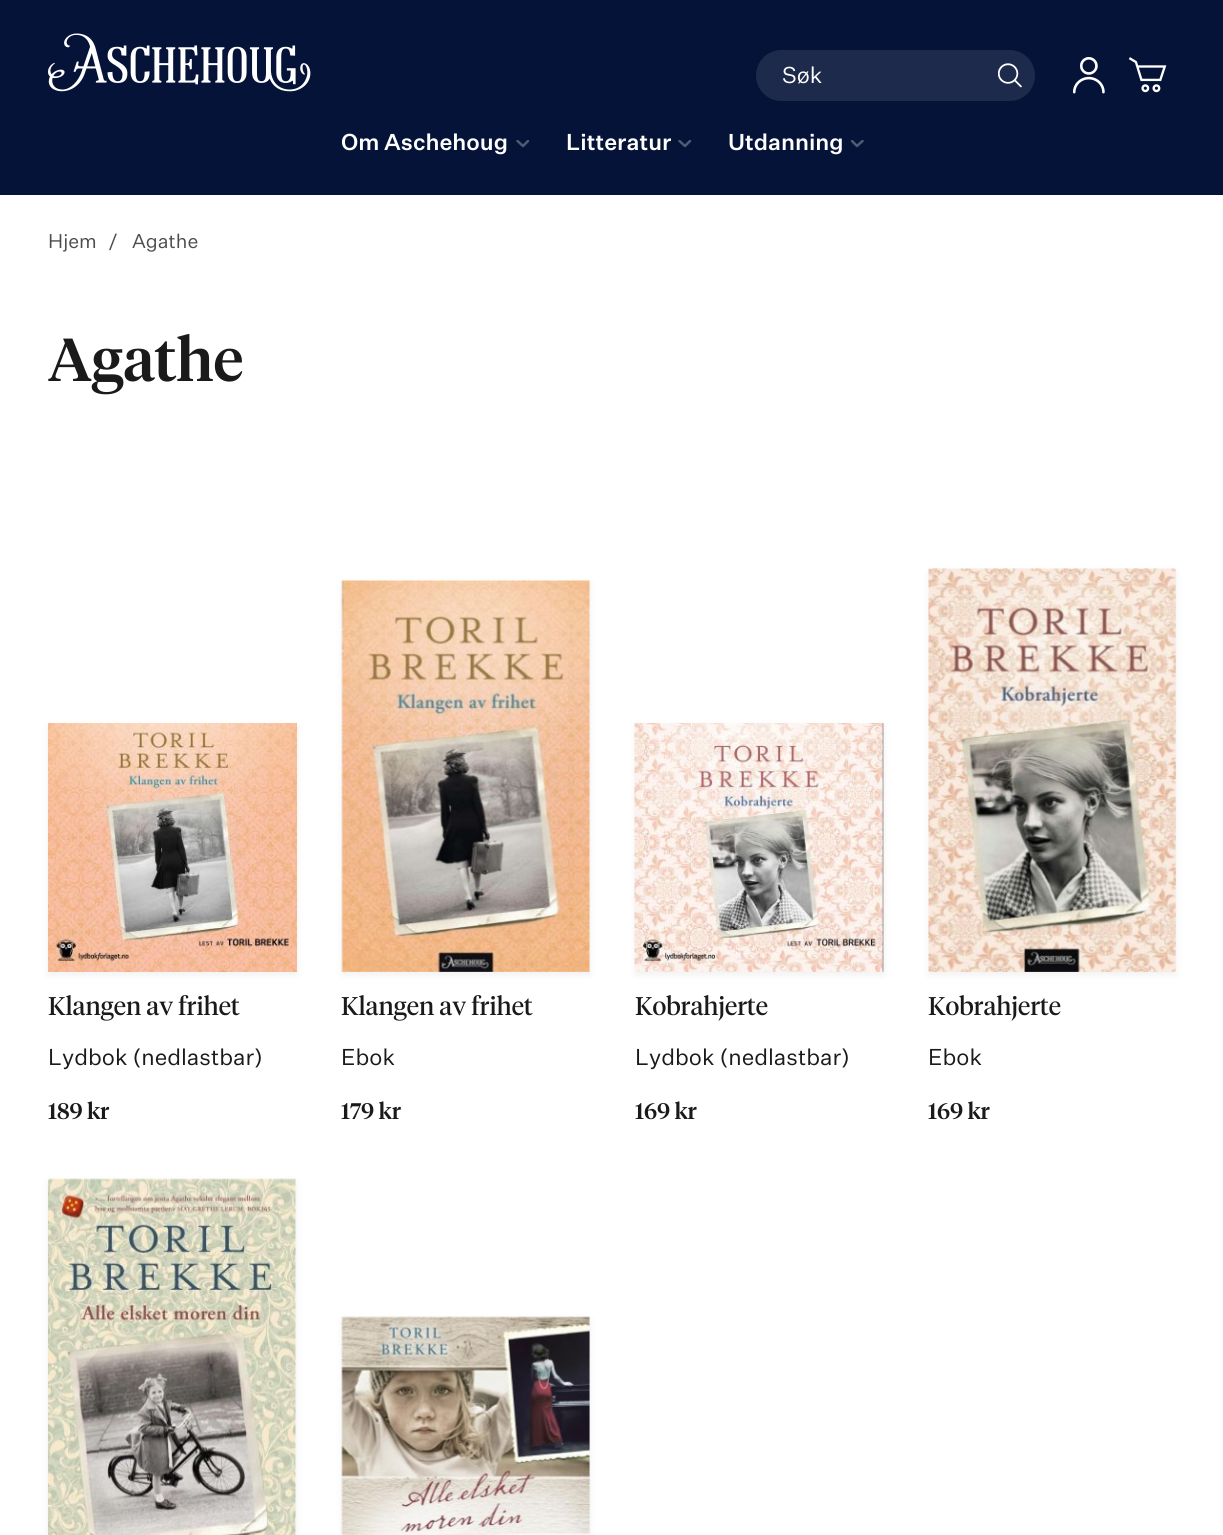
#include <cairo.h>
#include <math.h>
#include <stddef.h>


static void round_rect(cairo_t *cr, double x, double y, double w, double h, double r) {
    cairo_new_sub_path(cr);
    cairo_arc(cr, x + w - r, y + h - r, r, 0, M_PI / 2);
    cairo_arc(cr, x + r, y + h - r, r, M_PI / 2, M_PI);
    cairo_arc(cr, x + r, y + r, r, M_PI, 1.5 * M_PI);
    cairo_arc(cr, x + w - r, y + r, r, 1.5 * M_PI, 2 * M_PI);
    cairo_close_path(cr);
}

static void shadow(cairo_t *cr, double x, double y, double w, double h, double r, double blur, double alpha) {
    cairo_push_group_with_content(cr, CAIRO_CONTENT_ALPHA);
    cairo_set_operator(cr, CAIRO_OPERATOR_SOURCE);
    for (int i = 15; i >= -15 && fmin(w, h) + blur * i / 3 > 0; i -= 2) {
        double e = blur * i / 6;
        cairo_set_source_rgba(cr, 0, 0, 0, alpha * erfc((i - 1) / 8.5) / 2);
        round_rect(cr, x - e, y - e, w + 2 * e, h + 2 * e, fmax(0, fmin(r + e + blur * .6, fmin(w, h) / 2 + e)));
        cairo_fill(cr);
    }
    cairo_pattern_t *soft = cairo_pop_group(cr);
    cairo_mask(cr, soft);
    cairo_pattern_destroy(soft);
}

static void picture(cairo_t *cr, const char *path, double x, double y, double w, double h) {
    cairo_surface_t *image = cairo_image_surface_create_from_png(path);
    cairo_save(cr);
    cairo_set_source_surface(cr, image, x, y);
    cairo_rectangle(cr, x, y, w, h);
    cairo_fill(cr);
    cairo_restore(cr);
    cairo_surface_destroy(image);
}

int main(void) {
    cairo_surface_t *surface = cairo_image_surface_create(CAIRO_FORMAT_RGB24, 1223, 1535);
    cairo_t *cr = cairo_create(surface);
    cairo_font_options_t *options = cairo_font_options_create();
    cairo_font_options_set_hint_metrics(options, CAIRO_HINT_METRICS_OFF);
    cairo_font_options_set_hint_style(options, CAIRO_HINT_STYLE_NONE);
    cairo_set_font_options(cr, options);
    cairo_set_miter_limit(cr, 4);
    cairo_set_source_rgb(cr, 1, 1, 1);
    cairo_paint(cr);
    cairo_set_source_rgb(cr, 0.016, 0.075, 0.216);
    cairo_rectangle(cr, 0, 0, 1223, 195);
    cairo_fill(cr);
    picture(cr, "img1.png", 48, 33, 263, 59);
    cairo_set_source_rgba(cr, 1, 1, 1, 0.1);
    round_rect(cr, 756, 50, 279, 51, 25.5);
    cairo_fill(cr);
    cairo_select_font_face(cr, "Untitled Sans", CAIRO_FONT_SLANT_NORMAL, CAIRO_FONT_WEIGHT_NORMAL);
    cairo_set_font_size(cr, 22.5);
    cairo_set_source_rgb(cr, 1, 1, 1);
    cairo_move_to(cr, 782, 83);
    cairo_show_text(cr, "Søk");
    picture(cr, "img2.png", 998, 63, 24, 25);
    picture(cr, "img3.png", 1073, 57, 32, 37);
    picture(cr, "img4.png", 1128, 57, 39, 36);
    cairo_select_font_face(cr, "Untitled Sans Medium", CAIRO_FONT_SLANT_NORMAL, CAIRO_FONT_WEIGHT_NORMAL);
    cairo_move_to(cr, 341, 150);
    cairo_show_text(cr, "Om Aschehoug");
    cairo_save(cr);
    cairo_rectangle(cr, 516, 140, 14, 9);
    cairo_clip(cr);
    cairo_new_path(cr);
    cairo_move_to(cr, 517.5, 141);
    cairo_line_to(cr, 523, 146);
    cairo_line_to(cr, 528, 141);
    cairo_set_source_rgb(cr, 0.31, 0.353, 0.451);
    cairo_set_line_width(cr, 2.5);
    cairo_set_line_cap(cr, CAIRO_LINE_CAP_ROUND);
    cairo_set_line_join(cr, CAIRO_LINE_JOIN_ROUND);
    cairo_stroke(cr);
    cairo_restore(cr);
    cairo_move_to(cr, 566, 150);
    cairo_show_text(cr, "Litteratur");
    cairo_save(cr);
    cairo_rectangle(cr, 678, 140, 14, 9);
    cairo_clip(cr);
    cairo_new_path(cr);
    cairo_move_to(cr, 679.5, 141);
    cairo_line_to(cr, 685, 146);
    cairo_line_to(cr, 690, 141);
    cairo_set_source_rgb(cr, 0.31, 0.353, 0.451);
    cairo_set_line_width(cr, 2.5);
    cairo_set_line_cap(cr, CAIRO_LINE_CAP_ROUND);
    cairo_set_line_join(cr, CAIRO_LINE_JOIN_ROUND);
    cairo_stroke(cr);
    cairo_restore(cr);
    cairo_move_to(cr, 728, 150);
    cairo_show_text(cr, "Utdanning");
    cairo_save(cr);
    cairo_rectangle(cr, 851, 140, 13, 9);
    cairo_clip(cr);
    cairo_new_path(cr);
    cairo_move_to(cr, 852, 141);
    cairo_line_to(cr, 857, 146);
    cairo_line_to(cr, 862.5, 141);
    cairo_set_source_rgb(cr, 0.31, 0.353, 0.451);
    cairo_set_line_width(cr, 2.5);
    cairo_set_line_cap(cr, CAIRO_LINE_CAP_ROUND);
    cairo_set_line_join(cr, CAIRO_LINE_JOIN_ROUND);
    cairo_stroke(cr);
    cairo_restore(cr);
    cairo_select_font_face(cr, "Untitled Sans", CAIRO_FONT_SLANT_NORMAL, CAIRO_FONT_WEIGHT_NORMAL);
    cairo_set_font_size(cr, 19.5);
    cairo_set_source_rgb(cr, 0.302, 0.302, 0.302);
    cairo_move_to(cr, 48, 248);
    cairo_show_text(cr, "Hjem");
    cairo_move_to(cr, 108, 248);
    cairo_show_text(cr, "/");
    cairo_move_to(cr, 132, 248);
    cairo_show_text(cr, "Agathe");
    cairo_select_font_face(cr, "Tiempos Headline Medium", CAIRO_FONT_SLANT_NORMAL, CAIRO_FONT_WEIGHT_NORMAL);
    cairo_set_font_size(cr, 60);
    cairo_set_source_rgb(cr, 0.102, 0.102, 0.102);
    cairo_move_to(cr, 48, 381);
    cairo_show_text(cr, "Agathe");
    cairo_set_source_rgb(cr, 0, 0, 0);
    shadow(cr, 48, 726, 249, 249, 0, 4, 0.06);
    picture(cr, "img5.png", 48, 723, 249, 249);
    cairo_select_font_face(cr, "Tiempos Headline", CAIRO_FONT_SLANT_NORMAL, CAIRO_FONT_WEIGHT_NORMAL);
    cairo_set_font_size(cr, 25.5);
    cairo_set_source_rgb(cr, 0.102, 0.102, 0.102);
    cairo_move_to(cr, 48, 1015);
    cairo_show_text(cr, "Klangen av frihet");
    cairo_select_font_face(cr, "Untitled Sans", CAIRO_FONT_SLANT_NORMAL, CAIRO_FONT_WEIGHT_NORMAL);
    cairo_set_font_size(cr, 22.5);
    cairo_move_to(cr, 48, 1065);
    cairo_show_text(cr, "Lydbok (nedlastbar)");
    cairo_select_font_face(cr, "Tiempos Headline Medium", CAIRO_FONT_SLANT_NORMAL, CAIRO_FONT_WEIGHT_NORMAL);
    cairo_move_to(cr, 48, 1119);
    cairo_show_text(cr, "189 kr");
    cairo_set_source_rgb(cr, 0, 0, 0);
    shadow(cr, 342, 584, 248, 391, 0, 4, 0.06);
    picture(cr, "img6.png", 341, 580, 249, 392);
    cairo_select_font_face(cr, "Tiempos Headline", CAIRO_FONT_SLANT_NORMAL, CAIRO_FONT_WEIGHT_NORMAL);
    cairo_set_font_size(cr, 25.5);
    cairo_set_source_rgb(cr, 0.102, 0.102, 0.102);
    cairo_move_to(cr, 341, 1015);
    cairo_show_text(cr, "Klangen av frihet");
    cairo_select_font_face(cr, "Untitled Sans", CAIRO_FONT_SLANT_NORMAL, CAIRO_FONT_WEIGHT_NORMAL);
    cairo_set_font_size(cr, 22.5);
    cairo_move_to(cr, 341, 1065);
    cairo_show_text(cr, "Ebok");
    cairo_select_font_face(cr, "Tiempos Headline Medium", CAIRO_FONT_SLANT_NORMAL, CAIRO_FONT_WEIGHT_NORMAL);
    cairo_move_to(cr, 341, 1119);
    cairo_show_text(cr, "179 kr");
    cairo_set_source_rgb(cr, 0, 0, 0);
    shadow(cr, 635, 726, 249, 249, 0, 4, 0.06);
    picture(cr, "img7.png", 634, 723, 250, 249);
    cairo_select_font_face(cr, "Tiempos Headline", CAIRO_FONT_SLANT_NORMAL, CAIRO_FONT_WEIGHT_NORMAL);
    cairo_set_font_size(cr, 25.5);
    cairo_set_source_rgb(cr, 0.102, 0.102, 0.102);
    cairo_move_to(cr, 635, 1015);
    cairo_show_text(cr, "Kobrahjerte");
    cairo_select_font_face(cr, "Untitled Sans", CAIRO_FONT_SLANT_NORMAL, CAIRO_FONT_WEIGHT_NORMAL);
    cairo_set_font_size(cr, 22.5);
    cairo_move_to(cr, 635, 1065);
    cairo_show_text(cr, "Lydbok (nedlastbar)");
    cairo_select_font_face(cr, "Tiempos Headline Medium", CAIRO_FONT_SLANT_NORMAL, CAIRO_FONT_WEIGHT_NORMAL);
    cairo_move_to(cr, 635, 1119);
    cairo_show_text(cr, "169 kr");
    cairo_set_source_rgb(cr, 0, 0, 0);
    shadow(cr, 929, 572, 247, 403, 0, 4, 0.06);
    picture(cr, "img8.png", 928, 568, 248, 404);
    cairo_select_font_face(cr, "Tiempos Headline", CAIRO_FONT_SLANT_NORMAL, CAIRO_FONT_WEIGHT_NORMAL);
    cairo_set_font_size(cr, 25.5);
    cairo_set_source_rgb(cr, 0.102, 0.102, 0.102);
    cairo_move_to(cr, 928, 1015);
    cairo_show_text(cr, "Kobrahjerte");
    cairo_select_font_face(cr, "Untitled Sans", CAIRO_FONT_SLANT_NORMAL, CAIRO_FONT_WEIGHT_NORMAL);
    cairo_set_font_size(cr, 22.5);
    cairo_move_to(cr, 928, 1065);
    cairo_show_text(cr, "Ebok");
    cairo_select_font_face(cr, "Tiempos Headline Medium", CAIRO_FONT_SLANT_NORMAL, CAIRO_FONT_WEIGHT_NORMAL);
    cairo_move_to(cr, 928, 1119);
    cairo_show_text(cr, "169 kr");
    cairo_set_source_rgb(cr, 0, 0, 0);
    shadow(cr, 48, 1182, 248, 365, 0, 4, 0.06);
    picture(cr, "img9.png", 48, 1178, 248, 357);
    shadow(cr, 342, 1320, 248, 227, 0, 4, 0.06);
    picture(cr, "img10.png", 341, 1316, 249, 219);
    cairo_surface_write_to_png(surface, "page.png");
    cairo_font_options_destroy(options);
    cairo_destroy(cr);
    cairo_surface_destroy(surface);
    return 0;
}
